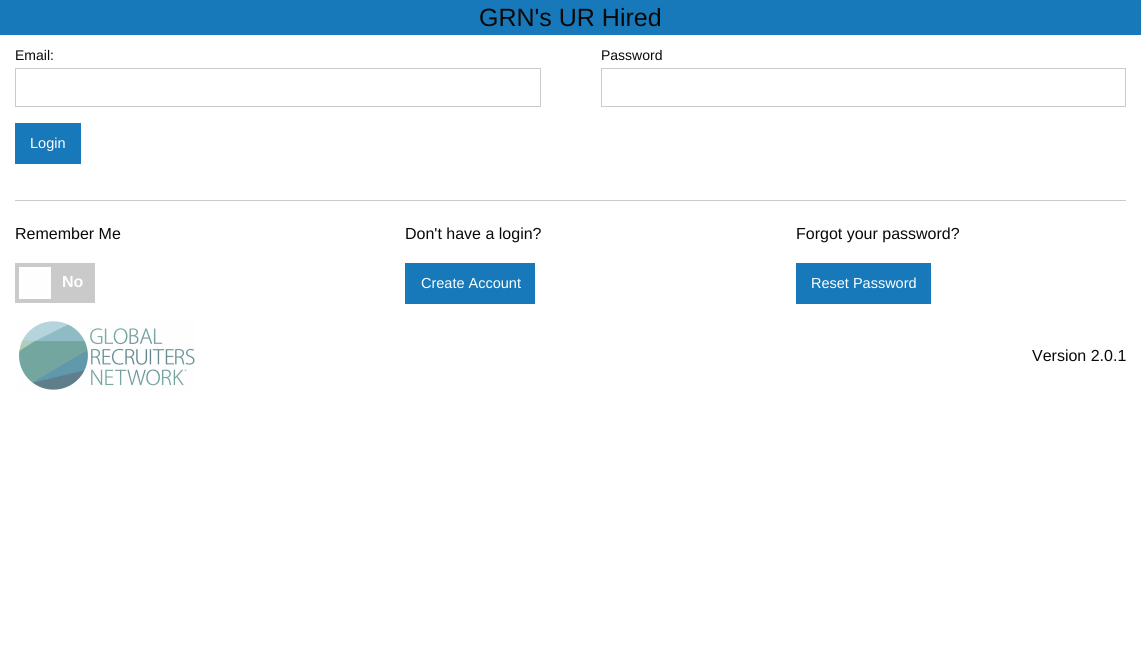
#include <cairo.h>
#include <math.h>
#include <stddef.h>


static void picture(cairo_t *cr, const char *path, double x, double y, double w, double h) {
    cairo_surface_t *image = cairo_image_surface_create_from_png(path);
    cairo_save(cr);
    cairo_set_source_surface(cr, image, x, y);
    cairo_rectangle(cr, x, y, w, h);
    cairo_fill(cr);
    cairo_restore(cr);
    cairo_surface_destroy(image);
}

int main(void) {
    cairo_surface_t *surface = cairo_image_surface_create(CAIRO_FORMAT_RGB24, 1141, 665);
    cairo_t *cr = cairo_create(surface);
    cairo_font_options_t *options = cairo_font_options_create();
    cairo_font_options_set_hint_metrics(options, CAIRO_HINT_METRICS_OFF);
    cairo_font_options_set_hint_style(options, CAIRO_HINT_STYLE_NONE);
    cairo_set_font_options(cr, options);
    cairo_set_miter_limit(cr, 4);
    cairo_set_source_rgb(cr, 1, 1, 1);
    cairo_paint(cr);
    cairo_set_source_rgb(cr, 0.09, 0.475, 0.729);
    cairo_rectangle(cr, 0, 0, 1141, 35);
    cairo_fill(cr);
    cairo_select_font_face(cr, "Liberation Sans", CAIRO_FONT_SLANT_NORMAL, CAIRO_FONT_WEIGHT_NORMAL);
    cairo_set_font_size(cr, 25);
    cairo_set_source_rgb(cr, 0.039, 0.039, 0.039);
    cairo_move_to(cr, 479, 26);
    cairo_show_text(cr, "GRN's UR Hired");
    cairo_set_font_size(cr, 14);
    cairo_move_to(cr, 15, 60);
    cairo_show_text(cr, "Email:");
    cairo_rectangle(cr, 15.5, 68.5, 525, 38);
    cairo_set_source_rgb(cr, 0.792, 0.792, 0.792);
    cairo_set_line_width(cr, 1);
    cairo_stroke(cr);
    cairo_set_source_rgb(cr, 0.039, 0.039, 0.039);
    cairo_move_to(cr, 601, 60);
    cairo_show_text(cr, "Password");
    cairo_rectangle(cr, 601.5, 68.5, 524, 38);
    cairo_set_source_rgb(cr, 0.792, 0.792, 0.792);
    cairo_stroke(cr);
    cairo_set_source_rgb(cr, 0.09, 0.475, 0.729);
    cairo_rectangle(cr, 15, 123, 66, 41);
    cairo_fill(cr);
    cairo_set_font_size(cr, 14.5);
    cairo_set_source_rgb(cr, 0.996, 0.996, 0.996);
    cairo_move_to(cr, 30, 148);
    cairo_show_text(cr, "Login");
    cairo_set_source_rgb(cr, 0.792, 0.792, 0.792);
    cairo_rectangle(cr, 15, 200, 1111, 1);
    cairo_fill(cr);
    cairo_set_font_size(cr, 16);
    cairo_set_source_rgb(cr, 0.039, 0.039, 0.039);
    cairo_move_to(cr, 15, 239);
    cairo_show_text(cr, "Remember Me");
    cairo_set_source_rgb(cr, 0.792, 0.792, 0.792);
    cairo_rectangle(cr, 15, 263, 80, 40);
    cairo_fill(cr);
    cairo_set_source_rgb(cr, 0.996, 0.996, 0.996);
    cairo_rectangle(cr, 19, 267, 32, 32);
    cairo_fill(cr);
    cairo_select_font_face(cr, "Liberation Sans", CAIRO_FONT_SLANT_NORMAL, CAIRO_FONT_WEIGHT_BOLD);
    cairo_move_to(cr, 62, 287);
    cairo_show_text(cr, "No");
    cairo_select_font_face(cr, "Liberation Sans", CAIRO_FONT_SLANT_NORMAL, CAIRO_FONT_WEIGHT_NORMAL);
    cairo_set_source_rgb(cr, 0.039, 0.039, 0.039);
    cairo_move_to(cr, 405, 239);
    cairo_show_text(cr, "Don't have a login?");
    cairo_set_source_rgb(cr, 0.09, 0.475, 0.729);
    cairo_rectangle(cr, 405, 263, 130, 41);
    cairo_fill(cr);
    cairo_set_font_size(cr, 14.5);
    cairo_set_source_rgb(cr, 0.996, 0.996, 0.996);
    cairo_move_to(cr, 421, 288);
    cairo_show_text(cr, "Create Account");
    cairo_set_font_size(cr, 16);
    cairo_set_source_rgb(cr, 0.039, 0.039, 0.039);
    cairo_move_to(cr, 796, 239);
    cairo_show_text(cr, "Forgot your password?");
    cairo_set_source_rgb(cr, 0.09, 0.475, 0.729);
    cairo_rectangle(cr, 796, 263, 135, 41);
    cairo_fill(cr);
    cairo_set_font_size(cr, 14.5);
    cairo_set_source_rgb(cr, 0.996, 0.996, 0.996);
    cairo_move_to(cr, 811, 288);
    cairo_show_text(cr, "Reset Password");
    picture(cr, "img1.png", 18, 321, 177, 69);
    cairo_set_font_size(cr, 16);
    cairo_set_source_rgb(cr, 0.039, 0.039, 0.039);
    cairo_move_to(cr, 1032, 361);
    cairo_show_text(cr, "Version 2.0.1");
    cairo_surface_write_to_png(surface, "page.png");
    cairo_font_options_destroy(options);
    cairo_destroy(cr);
    cairo_surface_destroy(surface);
    return 0;
}
